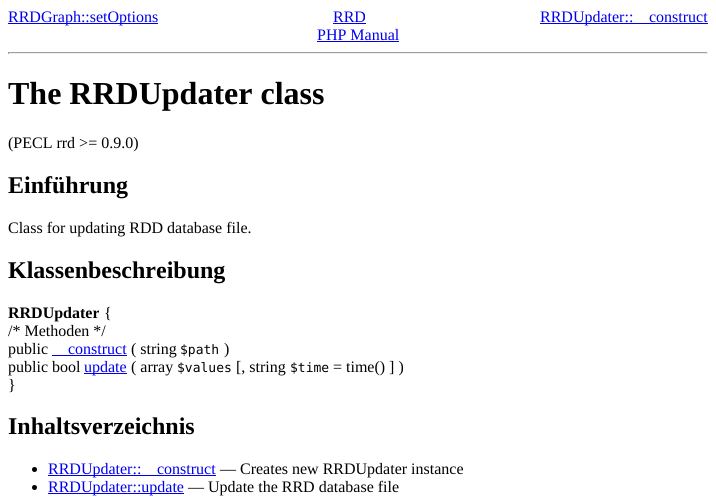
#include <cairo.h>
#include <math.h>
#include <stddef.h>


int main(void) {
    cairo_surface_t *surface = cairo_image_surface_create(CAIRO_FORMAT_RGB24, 716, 502);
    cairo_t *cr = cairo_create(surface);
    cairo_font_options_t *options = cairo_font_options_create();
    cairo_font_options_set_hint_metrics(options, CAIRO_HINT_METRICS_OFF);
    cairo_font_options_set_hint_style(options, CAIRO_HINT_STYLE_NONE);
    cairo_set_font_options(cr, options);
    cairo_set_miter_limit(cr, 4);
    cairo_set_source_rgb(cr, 1, 1, 1);
    cairo_paint(cr);
    cairo_set_source_rgb(cr, 0, 0, 0.933);
    cairo_rectangle(cr, 8, 23, 150, 1);
    cairo_fill(cr);
    cairo_select_font_face(cr, "Liberation Serif", CAIRO_FONT_SLANT_NORMAL, CAIRO_FONT_WEIGHT_NORMAL);
    cairo_set_font_size(cr, 16);
    cairo_move_to(cr, 8, 22);
    cairo_show_text(cr, "RRDGraph::setOptions");
    cairo_move_to(cr, 333, 22);
    cairo_show_text(cr, "RRD");
    cairo_rectangle(cr, 333, 23, 33, 1);
    cairo_fill(cr);
    cairo_rectangle(cr, 540, 23, 168, 1);
    cairo_fill(cr);
    cairo_move_to(cr, 540, 22);
    cairo_show_text(cr, "RRDUpdater::");
    cairo_move_to(cr, 649, 22);
    cairo_show_text(cr, "construct");
    cairo_move_to(cr, 317, 40);
    cairo_show_text(cr, "PHP Manual");
    cairo_rectangle(cr, 317, 41, 82, 1);
    cairo_fill(cr);
    cairo_set_source_rgb(cr, 0.624, 0.624, 0.624);
    cairo_rectangle(cr, 8, 52, 700, 1);
    cairo_fill(cr);
    cairo_set_source_rgb(cr, 0.933, 0.933, 0.933);
    cairo_rectangle(cr, 707, 52, 1, 2);
    cairo_fill(cr);
    cairo_rectangle(cr, 8, 53, 700, 1);
    cairo_fill(cr);
    cairo_set_source_rgb(cr, 0.624, 0.624, 0.624);
    cairo_rectangle(cr, 8, 52, 1, 2);
    cairo_fill(cr);
    cairo_select_font_face(cr, "Liberation Serif", CAIRO_FONT_SLANT_NORMAL, CAIRO_FONT_WEIGHT_BOLD);
    cairo_set_font_size(cr, 32);
    cairo_set_source_rgb(cr, 0, 0, 0);
    cairo_move_to(cr, 8, 104);
    cairo_show_text(cr, "The RRDUpdater class");
    cairo_select_font_face(cr, "Liberation Serif", CAIRO_FONT_SLANT_NORMAL, CAIRO_FONT_WEIGHT_NORMAL);
    cairo_set_font_size(cr, 16);
    cairo_move_to(cr, 8, 148);
    cairo_show_text(cr, "(PECL rrd >= 0.9.0)");
    cairo_select_font_face(cr, "Liberation Serif", CAIRO_FONT_SLANT_NORMAL, CAIRO_FONT_WEIGHT_BOLD);
    cairo_set_font_size(cr, 24);
    cairo_move_to(cr, 8, 193);
    cairo_show_text(cr, "Einführung");
    cairo_select_font_face(cr, "Liberation Serif", CAIRO_FONT_SLANT_NORMAL, CAIRO_FONT_WEIGHT_NORMAL);
    cairo_set_font_size(cr, 16);
    cairo_move_to(cr, 8, 233);
    cairo_show_text(cr, "Class for updating RDD database file.");
    cairo_select_font_face(cr, "Liberation Serif", CAIRO_FONT_SLANT_NORMAL, CAIRO_FONT_WEIGHT_BOLD);
    cairo_set_font_size(cr, 24);
    cairo_move_to(cr, 8, 278);
    cairo_show_text(cr, "Klassenbeschreibung");
    cairo_set_font_size(cr, 16);
    cairo_move_to(cr, 8, 318);
    cairo_show_text(cr, "RRDUpdater");
    cairo_select_font_face(cr, "Liberation Serif", CAIRO_FONT_SLANT_NORMAL, CAIRO_FONT_WEIGHT_NORMAL);
    cairo_move_to(cr, 104, 318);
    cairo_show_text(cr, "{");
    cairo_move_to(cr, 8, 336);
    cairo_show_text(cr, "/* Methoden */");
    cairo_move_to(cr, 8, 354);
    cairo_show_text(cr, "public");
    cairo_set_source_rgb(cr, 0, 0, 0.933);
    cairo_move_to(cr, 68, 354);
    cairo_show_text(cr, "construct");
    cairo_rectangle(cr, 52, 355, 75, 1);
    cairo_fill(cr);
    cairo_set_source_rgb(cr, 0, 0, 0);
    cairo_move_to(cr, 131, 354);
    cairo_show_text(cr, "( string");
    cairo_select_font_face(cr, "DejaVu Sans Mono", CAIRO_FONT_SLANT_NORMAL, CAIRO_FONT_WEIGHT_NORMAL);
    cairo_set_font_size(cr, 13);
    cairo_move_to(cr, 180, 354);
    cairo_show_text(cr, "$path");
    cairo_select_font_face(cr, "Liberation Serif", CAIRO_FONT_SLANT_NORMAL, CAIRO_FONT_WEIGHT_NORMAL);
    cairo_set_font_size(cr, 16);
    cairo_move_to(cr, 224, 354);
    cairo_show_text(cr, ")");
    cairo_move_to(cr, 8, 372);
    cairo_show_text(cr, "public bool");
    cairo_set_source_rgb(cr, 0, 0, 0.933);
    cairo_rectangle(cr, 84, 373, 43, 1);
    cairo_fill(cr);
    cairo_move_to(cr, 84, 372);
    cairo_show_text(cr, "update");
    cairo_set_source_rgb(cr, 0, 0, 0);
    cairo_move_to(cr, 131, 372);
    cairo_show_text(cr, "( array");
    cairo_select_font_face(cr, "DejaVu Sans Mono", CAIRO_FONT_SLANT_NORMAL, CAIRO_FONT_WEIGHT_NORMAL);
    cairo_set_font_size(cr, 13);
    cairo_move_to(cr, 177, 372);
    cairo_show_text(cr, "$values");
    cairo_select_font_face(cr, "Liberation Serif", CAIRO_FONT_SLANT_NORMAL, CAIRO_FONT_WEIGHT_NORMAL);
    cairo_set_font_size(cr, 16);
    cairo_move_to(cr, 236, 372);
    cairo_show_text(cr, "[, string");
    cairo_select_font_face(cr, "DejaVu Sans Mono", CAIRO_FONT_SLANT_NORMAL, CAIRO_FONT_WEIGHT_NORMAL);
    cairo_set_font_size(cr, 13);
    cairo_move_to(cr, 290, 372);
    cairo_show_text(cr, "$time");
    cairo_select_font_face(cr, "Liberation Serif", CAIRO_FONT_SLANT_NORMAL, CAIRO_FONT_WEIGHT_NORMAL);
    cairo_set_font_size(cr, 16);
    cairo_move_to(cr, 333, 372);
    cairo_show_text(cr, "= time() ] )");
    cairo_move_to(cr, 8, 390);
    cairo_show_text(cr, "}");
    cairo_select_font_face(cr, "Liberation Serif", CAIRO_FONT_SLANT_NORMAL, CAIRO_FONT_WEIGHT_BOLD);
    cairo_set_font_size(cr, 24);
    cairo_move_to(cr, 8, 434);
    cairo_show_text(cr, "Inhaltsverzeichnis");
    cairo_new_path(cr);
    cairo_arc(cr, 34.5, 469.5, 2.5, 0, 2 * M_PI);
    cairo_fill(cr);
    cairo_set_source_rgb(cr, 0, 0, 0.933);
    cairo_rectangle(cr, 48, 475, 168, 1);
    cairo_fill(cr);
    cairo_select_font_face(cr, "Liberation Serif", CAIRO_FONT_SLANT_NORMAL, CAIRO_FONT_WEIGHT_NORMAL);
    cairo_set_font_size(cr, 16);
    cairo_move_to(cr, 48, 474);
    cairo_show_text(cr, "RRDUpdater::");
    cairo_move_to(cr, 157, 474);
    cairo_show_text(cr, "construct");
    cairo_set_source_rgb(cr, 0, 0, 0);
    cairo_move_to(cr, 220, 474);
    cairo_show_text(cr, "— Creates new RRDUpdater instance");
    cairo_new_path(cr);
    cairo_arc(cr, 34.5, 487.5, 2.5, 0, 2 * M_PI);
    cairo_fill(cr);
    cairo_set_source_rgb(cr, 0, 0, 0.933);
    cairo_rectangle(cr, 48, 493, 136, 1);
    cairo_fill(cr);
    cairo_move_to(cr, 48, 492);
    cairo_show_text(cr, "RRDUpdater::update");
    cairo_set_source_rgb(cr, 0, 0, 0);
    cairo_move_to(cr, 188, 492);
    cairo_show_text(cr, "— Update the RRD database file");
    cairo_surface_write_to_png(surface, "page.png");
    cairo_font_options_destroy(options);
    cairo_destroy(cr);
    cairo_surface_destroy(surface);
    return 0;
}
